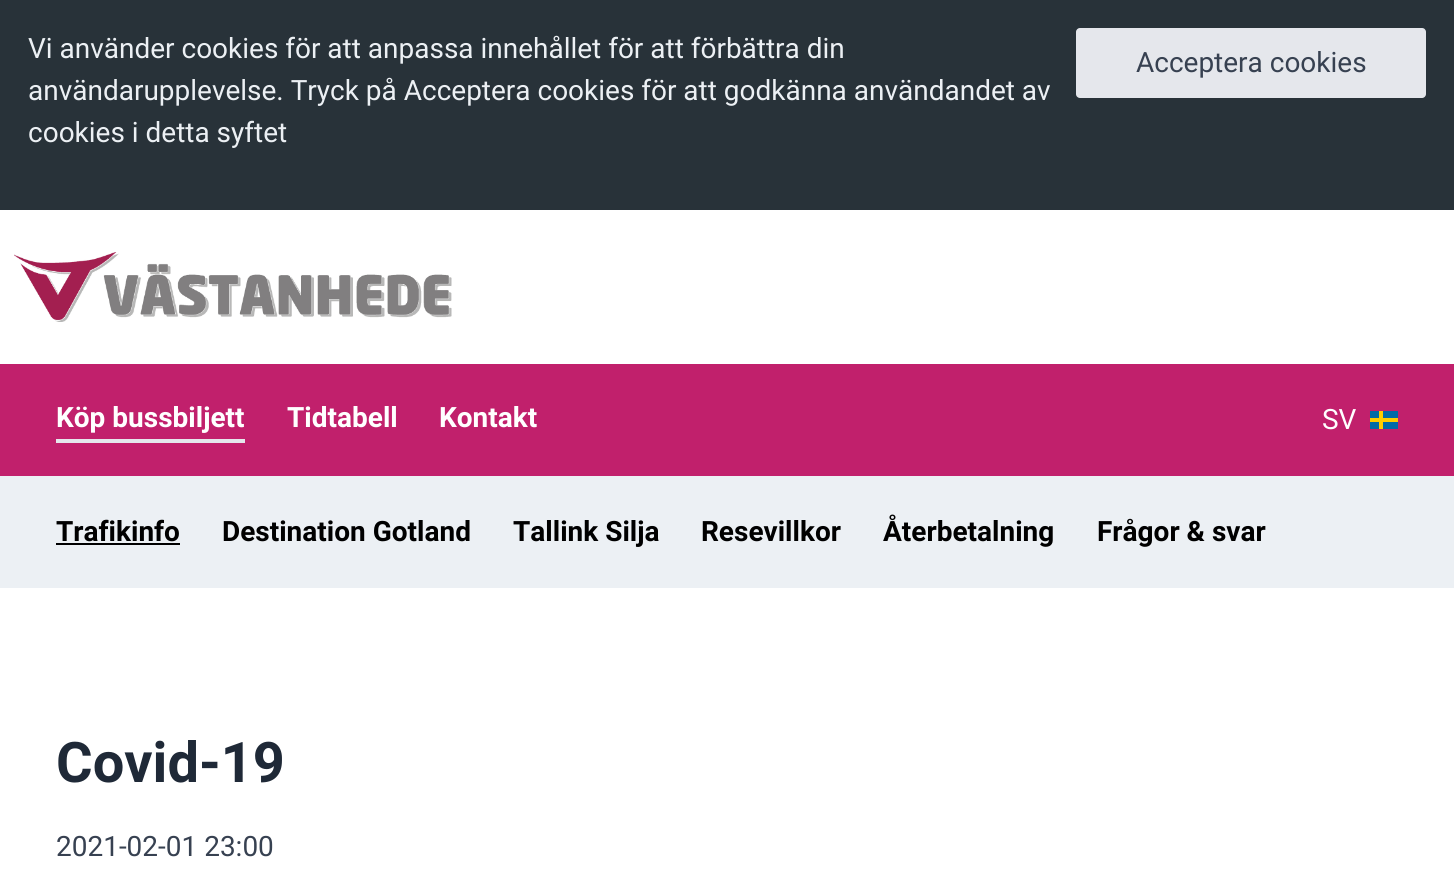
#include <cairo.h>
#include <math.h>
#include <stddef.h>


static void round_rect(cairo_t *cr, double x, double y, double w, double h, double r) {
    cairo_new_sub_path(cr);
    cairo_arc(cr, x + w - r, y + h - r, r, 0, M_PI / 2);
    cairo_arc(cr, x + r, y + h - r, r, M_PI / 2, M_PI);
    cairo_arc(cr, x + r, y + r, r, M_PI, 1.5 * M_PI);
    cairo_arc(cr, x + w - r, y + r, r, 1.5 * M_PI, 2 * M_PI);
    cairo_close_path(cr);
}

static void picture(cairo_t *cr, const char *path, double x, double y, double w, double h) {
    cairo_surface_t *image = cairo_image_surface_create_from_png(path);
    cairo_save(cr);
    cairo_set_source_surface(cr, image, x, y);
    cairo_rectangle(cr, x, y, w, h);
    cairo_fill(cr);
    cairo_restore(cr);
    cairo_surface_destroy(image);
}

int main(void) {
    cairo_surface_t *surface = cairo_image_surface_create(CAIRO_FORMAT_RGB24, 1454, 870);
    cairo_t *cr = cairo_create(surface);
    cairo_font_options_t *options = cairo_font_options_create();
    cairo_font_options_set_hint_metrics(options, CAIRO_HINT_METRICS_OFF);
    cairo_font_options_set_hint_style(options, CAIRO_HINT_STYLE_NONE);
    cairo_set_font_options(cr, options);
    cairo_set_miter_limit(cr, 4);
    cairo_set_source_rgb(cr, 1, 1, 1);
    cairo_paint(cr);
    cairo_set_source_rgb(cr, 0.157, 0.196, 0.224);
    cairo_rectangle(cr, 0, 0, 1454, 210);
    cairo_fill(cr);
    cairo_select_font_face(cr, "Roboto", CAIRO_FONT_SLANT_NORMAL, CAIRO_FONT_WEIGHT_NORMAL);
    cairo_set_font_size(cr, 28);
    cairo_set_source_rgb(cr, 0.922, 0.941, 0.957);
    cairo_move_to(cr, 28, 58);
    cairo_show_text(cr, "Vi använder cookies för att anpassa innehållet för att förbättra din");
    cairo_move_to(cr, 28, 100);
    cairo_show_text(cr, "användarupplevelse. Tryck på Acceptera cookies för att godkänna användandet av");
    cairo_move_to(cr, 28, 142);
    cairo_show_text(cr, "cookies i detta syftet");
    cairo_set_source_rgb(cr, 0.898, 0.906, 0.922);
    round_rect(cr, 1076, 28, 350, 70, 4);
    cairo_fill(cr);
    cairo_set_source_rgb(cr, 0.216, 0.255, 0.318);
    cairo_move_to(cr, 1136, 72);
    cairo_show_text(cr, "Acceptera cookies");
    picture(cr, "img1.png", 14, 252, 438, 70);
    cairo_set_source_rgb(cr, 0.757, 0.125, 0.424);
    cairo_rectangle(cr, 0, 364, 1454, 112);
    cairo_fill(cr);
    cairo_set_source_rgb(cr, 0.898, 0.906, 0.922);
    cairo_rectangle(cr, 56, 439, 189, 4);
    cairo_fill(cr);
    cairo_select_font_face(cr, "Roboto", CAIRO_FONT_SLANT_NORMAL, CAIRO_FONT_WEIGHT_BOLD);
    cairo_set_source_rgb(cr, 1, 1, 1);
    cairo_move_to(cr, 56, 427);
    cairo_show_text(cr, "Köp bussbiljett");
    cairo_move_to(cr, 287, 427);
    cairo_show_text(cr, "Tidtabell");
    cairo_move_to(cr, 439, 427);
    cairo_show_text(cr, "Kontakt");
    cairo_select_font_face(cr, "Roboto", CAIRO_FONT_SLANT_NORMAL, CAIRO_FONT_WEIGHT_NORMAL);
    cairo_move_to(cr, 1322, 429);
    cairo_show_text(cr, "SV");
    cairo_set_source_rgb(cr, 0, 0.416, 0.655);
    cairo_rectangle(cr, 1370, 411, 28, 18);
    cairo_fill(cr);
    cairo_set_source_rgb(cr, 0.996, 0.8, 0);
    cairo_rectangle(cr, 1379, 411, 4, 18);
    cairo_fill(cr);
    cairo_rectangle(cr, 1370, 418, 28, 4);
    cairo_fill(cr);
    cairo_set_source_rgb(cr, 0.922, 0.941, 0.957);
    cairo_rectangle(cr, 0, 476, 1454, 112);
    cairo_fill(cr);
    cairo_select_font_face(cr, "Roboto", CAIRO_FONT_SLANT_NORMAL, CAIRO_FONT_WEIGHT_BOLD);
    cairo_set_source_rgb(cr, 0, 0, 0);
    cairo_move_to(cr, 56, 541);
    cairo_show_text(cr, "Trafikinfo");
    cairo_rectangle(cr, 56, 543, 124, 2);
    cairo_fill(cr);
    cairo_move_to(cr, 222, 541);
    cairo_show_text(cr, "Destination Gotland");
    cairo_move_to(cr, 513, 541);
    cairo_show_text(cr, "Tallink Silja");
    cairo_move_to(cr, 701, 541);
    cairo_show_text(cr, "Resevillkor");
    cairo_move_to(cr, 883, 541);
    cairo_show_text(cr, "Återbetalning");
    cairo_move_to(cr, 1097, 541);
    cairo_show_text(cr, "Frågor & svar");
    cairo_set_font_size(cr, 56);
    cairo_set_source_rgb(cr, 0.122, 0.161, 0.216);
    cairo_move_to(cr, 56, 782);
    cairo_show_text(cr, "Covid-19");
    cairo_select_font_face(cr, "Roboto", CAIRO_FONT_SLANT_NORMAL, CAIRO_FONT_WEIGHT_NORMAL);
    cairo_set_font_size(cr, 28);
    cairo_set_source_rgb(cr, 0.216, 0.255, 0.318);
    cairo_move_to(cr, 56, 856);
    cairo_show_text(cr, "2021-02-01 23:00");
    cairo_surface_write_to_png(surface, "page.png");
    cairo_font_options_destroy(options);
    cairo_destroy(cr);
    cairo_surface_destroy(surface);
    return 0;
}
